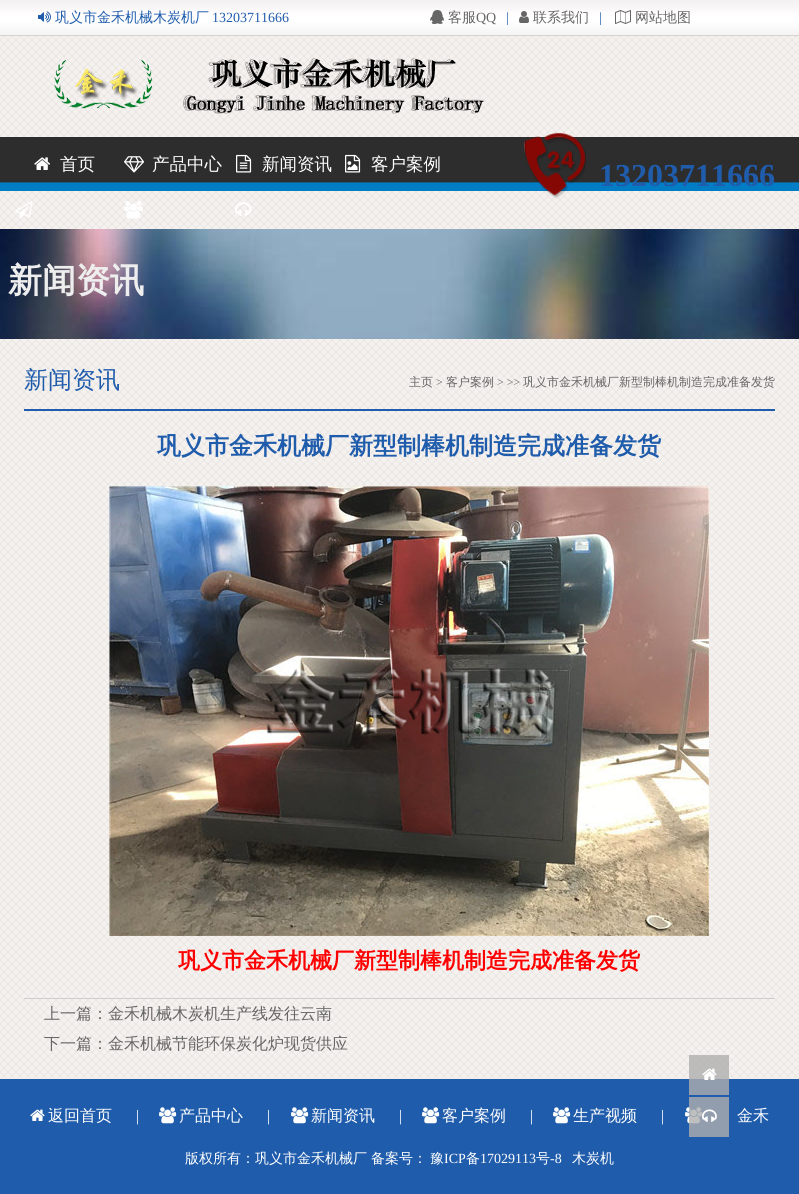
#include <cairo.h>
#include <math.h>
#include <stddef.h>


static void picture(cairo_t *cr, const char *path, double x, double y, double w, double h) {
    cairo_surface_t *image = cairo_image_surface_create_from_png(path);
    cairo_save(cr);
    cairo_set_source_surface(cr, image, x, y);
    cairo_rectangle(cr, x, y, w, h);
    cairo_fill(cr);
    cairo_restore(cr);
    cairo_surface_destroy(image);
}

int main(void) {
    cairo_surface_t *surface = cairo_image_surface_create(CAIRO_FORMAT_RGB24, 799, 1194);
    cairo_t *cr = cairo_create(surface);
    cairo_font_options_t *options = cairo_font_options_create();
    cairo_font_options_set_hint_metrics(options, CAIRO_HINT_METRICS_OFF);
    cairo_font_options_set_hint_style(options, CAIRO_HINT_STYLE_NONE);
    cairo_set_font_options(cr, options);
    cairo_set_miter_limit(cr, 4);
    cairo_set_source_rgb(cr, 1, 1, 1);
    cairo_paint(cr);
    picture(cr, "img1.png", 0, 36, 799, 1043);
    picture(cr, "img2.png", 0, 0, 799, 36);
    picture(cr, "img3.png", 38, 11, 13, 12);
    cairo_select_font_face(cr, "WenQuanYi Zen Hei Medium", CAIRO_FONT_SLANT_NORMAL, CAIRO_FONT_WEIGHT_NORMAL);
    cairo_set_font_size(cr, 14);
    cairo_set_source_rgb(cr, 0.122, 0.361, 0.675);
    cairo_move_to(cr, 55, 22);
    cairo_show_text(cr, "巩义市金禾机械木炭机厂");
    cairo_select_font_face(cr, "Liberation Serif", CAIRO_FONT_SLANT_NORMAL, CAIRO_FONT_WEIGHT_NORMAL);
    cairo_move_to(cr, 212, 22);
    cairo_show_text(cr, "13203711666");
    picture(cr, "img4.png", 430, 10, 14, 14);
    cairo_select_font_face(cr, "WenQuanYi Zen Hei Medium", CAIRO_FONT_SLANT_NORMAL, CAIRO_FONT_WEIGHT_NORMAL);
    cairo_set_source_rgb(cr, 0.4, 0.4, 0.4);
    cairo_move_to(cr, 448, 22);
    cairo_show_text(cr, "客服");
    cairo_select_font_face(cr, "Liberation Serif", CAIRO_FONT_SLANT_NORMAL, CAIRO_FONT_WEIGHT_NORMAL);
    cairo_move_to(cr, 476, 22);
    cairo_show_text(cr, "QQ");
    cairo_set_source_rgb(cr, 0.122, 0.361, 0.675);
    cairo_move_to(cr, 506, 22);
    cairo_show_text(cr, "|");
    picture(cr, "img5.png", 519, 11, 10, 12);
    cairo_select_font_face(cr, "WenQuanYi Zen Hei Medium", CAIRO_FONT_SLANT_NORMAL, CAIRO_FONT_WEIGHT_NORMAL);
    cairo_set_source_rgb(cr, 0.4, 0.4, 0.4);
    cairo_move_to(cr, 533, 22);
    cairo_show_text(cr, "联系我们");
    cairo_select_font_face(cr, "Liberation Serif", CAIRO_FONT_SLANT_NORMAL, CAIRO_FONT_WEIGHT_NORMAL);
    cairo_set_source_rgb(cr, 0.122, 0.361, 0.675);
    cairo_move_to(cr, 599, 22);
    cairo_show_text(cr, "|");
    picture(cr, "img6.png", 615, 10, 16, 14);
    cairo_select_font_face(cr, "WenQuanYi Zen Hei Medium", CAIRO_FONT_SLANT_NORMAL, CAIRO_FONT_WEIGHT_NORMAL);
    cairo_set_source_rgb(cr, 0.4, 0.4, 0.4);
    cairo_move_to(cr, 635, 22);
    cairo_show_text(cr, "网站地图");
    picture(cr, "img7.png", 0, 137, 799, 54);
    picture(cr, "img8.png", 34, 157, 16, 13);
    cairo_set_font_size(cr, 17.5);
    cairo_set_source_rgb(cr, 1, 1, 1);
    cairo_move_to(cr, 60, 170);
    cairo_show_text(cr, "首页");
    picture(cr, "img9.png", 124, 156, 21, 17);
    cairo_move_to(cr, 152, 170);
    cairo_show_text(cr, "产品中心");
    picture(cr, "img10.png", 236, 154, 16, 19);
    cairo_move_to(cr, 262, 170);
    cairo_show_text(cr, "新闻资讯");
    picture(cr, "img11.png", 345, 154, 16, 19);
    cairo_move_to(cr, 371, 170);
    cairo_show_text(cr, "客户案例");
    picture(cr, "img12.png", 15, 201, 18, 18);
    picture(cr, "img13.png", 124, 201, 19, 18);
    picture(cr, "img14.png", 235, 202, 17, 14);
    picture(cr, "img15.png", 54, 57, 430, 57);
    picture(cr, "img16.png", 524, 132, 62, 67);
    cairo_select_font_face(cr, "Liberation Serif", CAIRO_FONT_SLANT_NORMAL, CAIRO_FONT_WEIGHT_BOLD);
    cairo_set_font_size(cr, 32);
    cairo_set_source_rgb(cr, 0.122, 0.361, 0.675);
    cairo_move_to(cr, 599, 186);
    cairo_show_text(cr, "13203711666");
    picture(cr, "img17.png", 0, 229, 799, 110);
    cairo_select_font_face(cr, "WenQuanYi Zen Hei", CAIRO_FONT_SLANT_NORMAL, CAIRO_FONT_WEIGHT_BOLD);
    cairo_set_font_size(cr, 34);
    cairo_set_source_rgb(cr, 0.933, 0.933, 0.933);
    cairo_move_to(cr, 8, 292);
    cairo_show_text(cr, "新闻资讯");
    cairo_set_source_rgb(cr, 0.122, 0.361, 0.675);
    cairo_rectangle(cr, 24, 409, 751, 2);
    cairo_fill(cr);
    cairo_select_font_face(cr, "WenQuanYi Zen Hei Medium", CAIRO_FONT_SLANT_NORMAL, CAIRO_FONT_WEIGHT_NORMAL);
    cairo_set_font_size(cr, 24);
    cairo_move_to(cr, 24, 388);
    cairo_show_text(cr, "新闻资讯");
    cairo_set_font_size(cr, 12);
    cairo_set_source_rgb(cr, 0.4, 0.4, 0.4);
    cairo_move_to(cr, 409, 386);
    cairo_show_text(cr, "主页");
    cairo_select_font_face(cr, "Liberation Serif", CAIRO_FONT_SLANT_NORMAL, CAIRO_FONT_WEIGHT_NORMAL);
    cairo_move_to(cr, 436, 386);
    cairo_show_text(cr, ">");
    cairo_select_font_face(cr, "WenQuanYi Zen Hei Medium", CAIRO_FONT_SLANT_NORMAL, CAIRO_FONT_WEIGHT_NORMAL);
    cairo_move_to(cr, 446, 386);
    cairo_show_text(cr, "客户案例");
    cairo_select_font_face(cr, "Liberation Serif", CAIRO_FONT_SLANT_NORMAL, CAIRO_FONT_WEIGHT_NORMAL);
    cairo_move_to(cr, 497, 386);
    cairo_show_text(cr, "> >>");
    cairo_select_font_face(cr, "WenQuanYi Zen Hei Medium", CAIRO_FONT_SLANT_NORMAL, CAIRO_FONT_WEIGHT_NORMAL);
    cairo_move_to(cr, 523, 386);
    cairo_show_text(cr, "巩义市金禾机械厂新型制棒机制造完成准备发货");
    cairo_select_font_face(cr, "WenQuanYi Zen Hei", CAIRO_FONT_SLANT_NORMAL, CAIRO_FONT_WEIGHT_BOLD);
    cairo_set_font_size(cr, 24);
    cairo_set_source_rgb(cr, 0.122, 0.361, 0.675);
    cairo_move_to(cr, 157, 454);
    cairo_show_text(cr, "巩义市金禾机械厂新型制棒机制造完成准备发货");
    picture(cr, "img18.png", 109, 486, 600, 450);
    cairo_set_font_size(cr, 22);
    cairo_set_source_rgb(cr, 1, 0, 0);
    cairo_move_to(cr, 178, 968);
    cairo_show_text(cr, "巩义市金禾机械厂新型制棒机制造完成准备发货");
    cairo_set_source_rgb(cr, 0.8, 0.8, 0.8);
    cairo_rectangle(cr, 24, 998, 751, 1);
    cairo_fill(cr);
    cairo_select_font_face(cr, "WenQuanYi Zen Hei Medium", CAIRO_FONT_SLANT_NORMAL, CAIRO_FONT_WEIGHT_NORMAL);
    cairo_set_font_size(cr, 16);
    cairo_set_source_rgb(cr, 0.4, 0.4, 0.4);
    cairo_move_to(cr, 44, 1019);
    cairo_show_text(cr, "上一篇：金禾机械木炭机生产线发往云南");
    cairo_move_to(cr, 44, 1049);
    cairo_show_text(cr, "下一篇：金禾机械节能环保炭化炉现货供应");
    cairo_set_source_rgb(cr, 0.122, 0.361, 0.675);
    cairo_rectangle(cr, 0, 1079, 799, 115);
    cairo_fill(cr);
    cairo_set_source_rgba(cr, 0.686, 0.686, 0.686, 0.8);
    cairo_rectangle(cr, 689, 1055, 40, 40);
    cairo_fill(cr);
    picture(cr, "img19.png", 702, 1068, 15, 12);
    picture(cr, "img22.png", 685, 1107, 18, 17);
    cairo_rectangle(cr, 689, 1097, 40, 40);
    cairo_fill(cr);
    picture(cr, "img20.png", 702, 1109, 15, 13);
    picture(cr, "img21.png", 30, 1109, 15, 12);
    cairo_set_source_rgb(cr, 1, 1, 1);
    cairo_move_to(cr, 48, 1121);
    cairo_show_text(cr, "返回首页");
    cairo_select_font_face(cr, "Liberation Serif", CAIRO_FONT_SLANT_NORMAL, CAIRO_FONT_WEIGHT_NORMAL);
    cairo_move_to(cr, 136, 1121);
    cairo_show_text(cr, "|");
    picture(cr, "img22.png", 159, 1107, 18, 17);
    cairo_select_font_face(cr, "WenQuanYi Zen Hei Medium", CAIRO_FONT_SLANT_NORMAL, CAIRO_FONT_WEIGHT_NORMAL);
    cairo_move_to(cr, 179, 1121);
    cairo_show_text(cr, "产品中心");
    cairo_select_font_face(cr, "Liberation Serif", CAIRO_FONT_SLANT_NORMAL, CAIRO_FONT_WEIGHT_NORMAL);
    cairo_move_to(cr, 267, 1121);
    cairo_show_text(cr, "|");
    picture(cr, "img22.png", 291, 1107, 18, 17);
    cairo_select_font_face(cr, "WenQuanYi Zen Hei Medium", CAIRO_FONT_SLANT_NORMAL, CAIRO_FONT_WEIGHT_NORMAL);
    cairo_move_to(cr, 311, 1121);
    cairo_show_text(cr, "新闻资讯");
    cairo_select_font_face(cr, "Liberation Serif", CAIRO_FONT_SLANT_NORMAL, CAIRO_FONT_WEIGHT_NORMAL);
    cairo_move_to(cr, 399, 1121);
    cairo_show_text(cr, "|");
    picture(cr, "img22.png", 422, 1107, 18, 17);
    cairo_select_font_face(cr, "WenQuanYi Zen Hei Medium", CAIRO_FONT_SLANT_NORMAL, CAIRO_FONT_WEIGHT_NORMAL);
    cairo_move_to(cr, 442, 1121);
    cairo_show_text(cr, "客户案例");
    cairo_select_font_face(cr, "Liberation Serif", CAIRO_FONT_SLANT_NORMAL, CAIRO_FONT_WEIGHT_NORMAL);
    cairo_move_to(cr, 530, 1121);
    cairo_show_text(cr, "|");
    picture(cr, "img22.png", 553, 1107, 18, 17);
    cairo_select_font_face(cr, "WenQuanYi Zen Hei Medium", CAIRO_FONT_SLANT_NORMAL, CAIRO_FONT_WEIGHT_NORMAL);
    cairo_move_to(cr, 573, 1121);
    cairo_show_text(cr, "生产视频");
    cairo_select_font_face(cr, "Liberation Serif", CAIRO_FONT_SLANT_NORMAL, CAIRO_FONT_WEIGHT_NORMAL);
    cairo_move_to(cr, 661, 1121);
    cairo_show_text(cr, "|");
    cairo_select_font_face(cr, "WenQuanYi Zen Hei Medium", CAIRO_FONT_SLANT_NORMAL, CAIRO_FONT_WEIGHT_NORMAL);
    cairo_move_to(cr, 737, 1121);
    cairo_show_text(cr, "金禾");
    cairo_set_font_size(cr, 14);
    cairo_move_to(cr, 185, 1163);
    cairo_show_text(cr, "版权所有：巩义市金禾机械厂");
    cairo_move_to(cr, 371, 1163);
    cairo_show_text(cr, "备案号：");
    cairo_move_to(cr, 430, 1163);
    cairo_show_text(cr, "豫");
    cairo_select_font_face(cr, "Liberation Serif", CAIRO_FONT_SLANT_NORMAL, CAIRO_FONT_WEIGHT_NORMAL);
    cairo_move_to(cr, 444, 1163);
    cairo_show_text(cr, "ICP");
    cairo_select_font_face(cr, "WenQuanYi Zen Hei Medium", CAIRO_FONT_SLANT_NORMAL, CAIRO_FONT_WEIGHT_NORMAL);
    cairo_move_to(cr, 466, 1163);
    cairo_show_text(cr, "备");
    cairo_select_font_face(cr, "Liberation Serif", CAIRO_FONT_SLANT_NORMAL, CAIRO_FONT_WEIGHT_NORMAL);
    cairo_move_to(cr, 480, 1163);
    cairo_show_text(cr, "17029113");
    cairo_select_font_face(cr, "WenQuanYi Zen Hei Medium", CAIRO_FONT_SLANT_NORMAL, CAIRO_FONT_WEIGHT_NORMAL);
    cairo_move_to(cr, 536, 1163);
    cairo_show_text(cr, "号");
    cairo_select_font_face(cr, "Liberation Serif", CAIRO_FONT_SLANT_NORMAL, CAIRO_FONT_WEIGHT_NORMAL);
    cairo_move_to(cr, 550, 1163);
    cairo_show_text(cr, "-8");
    cairo_select_font_face(cr, "WenQuanYi Zen Hei Medium", CAIRO_FONT_SLANT_NORMAL, CAIRO_FONT_WEIGHT_NORMAL);
    cairo_move_to(cr, 572, 1163);
    cairo_show_text(cr, "木炭机");
    cairo_surface_write_to_png(surface, "page.png");
    cairo_font_options_destroy(options);
    cairo_destroy(cr);
    cairo_surface_destroy(surface);
    return 0;
}
